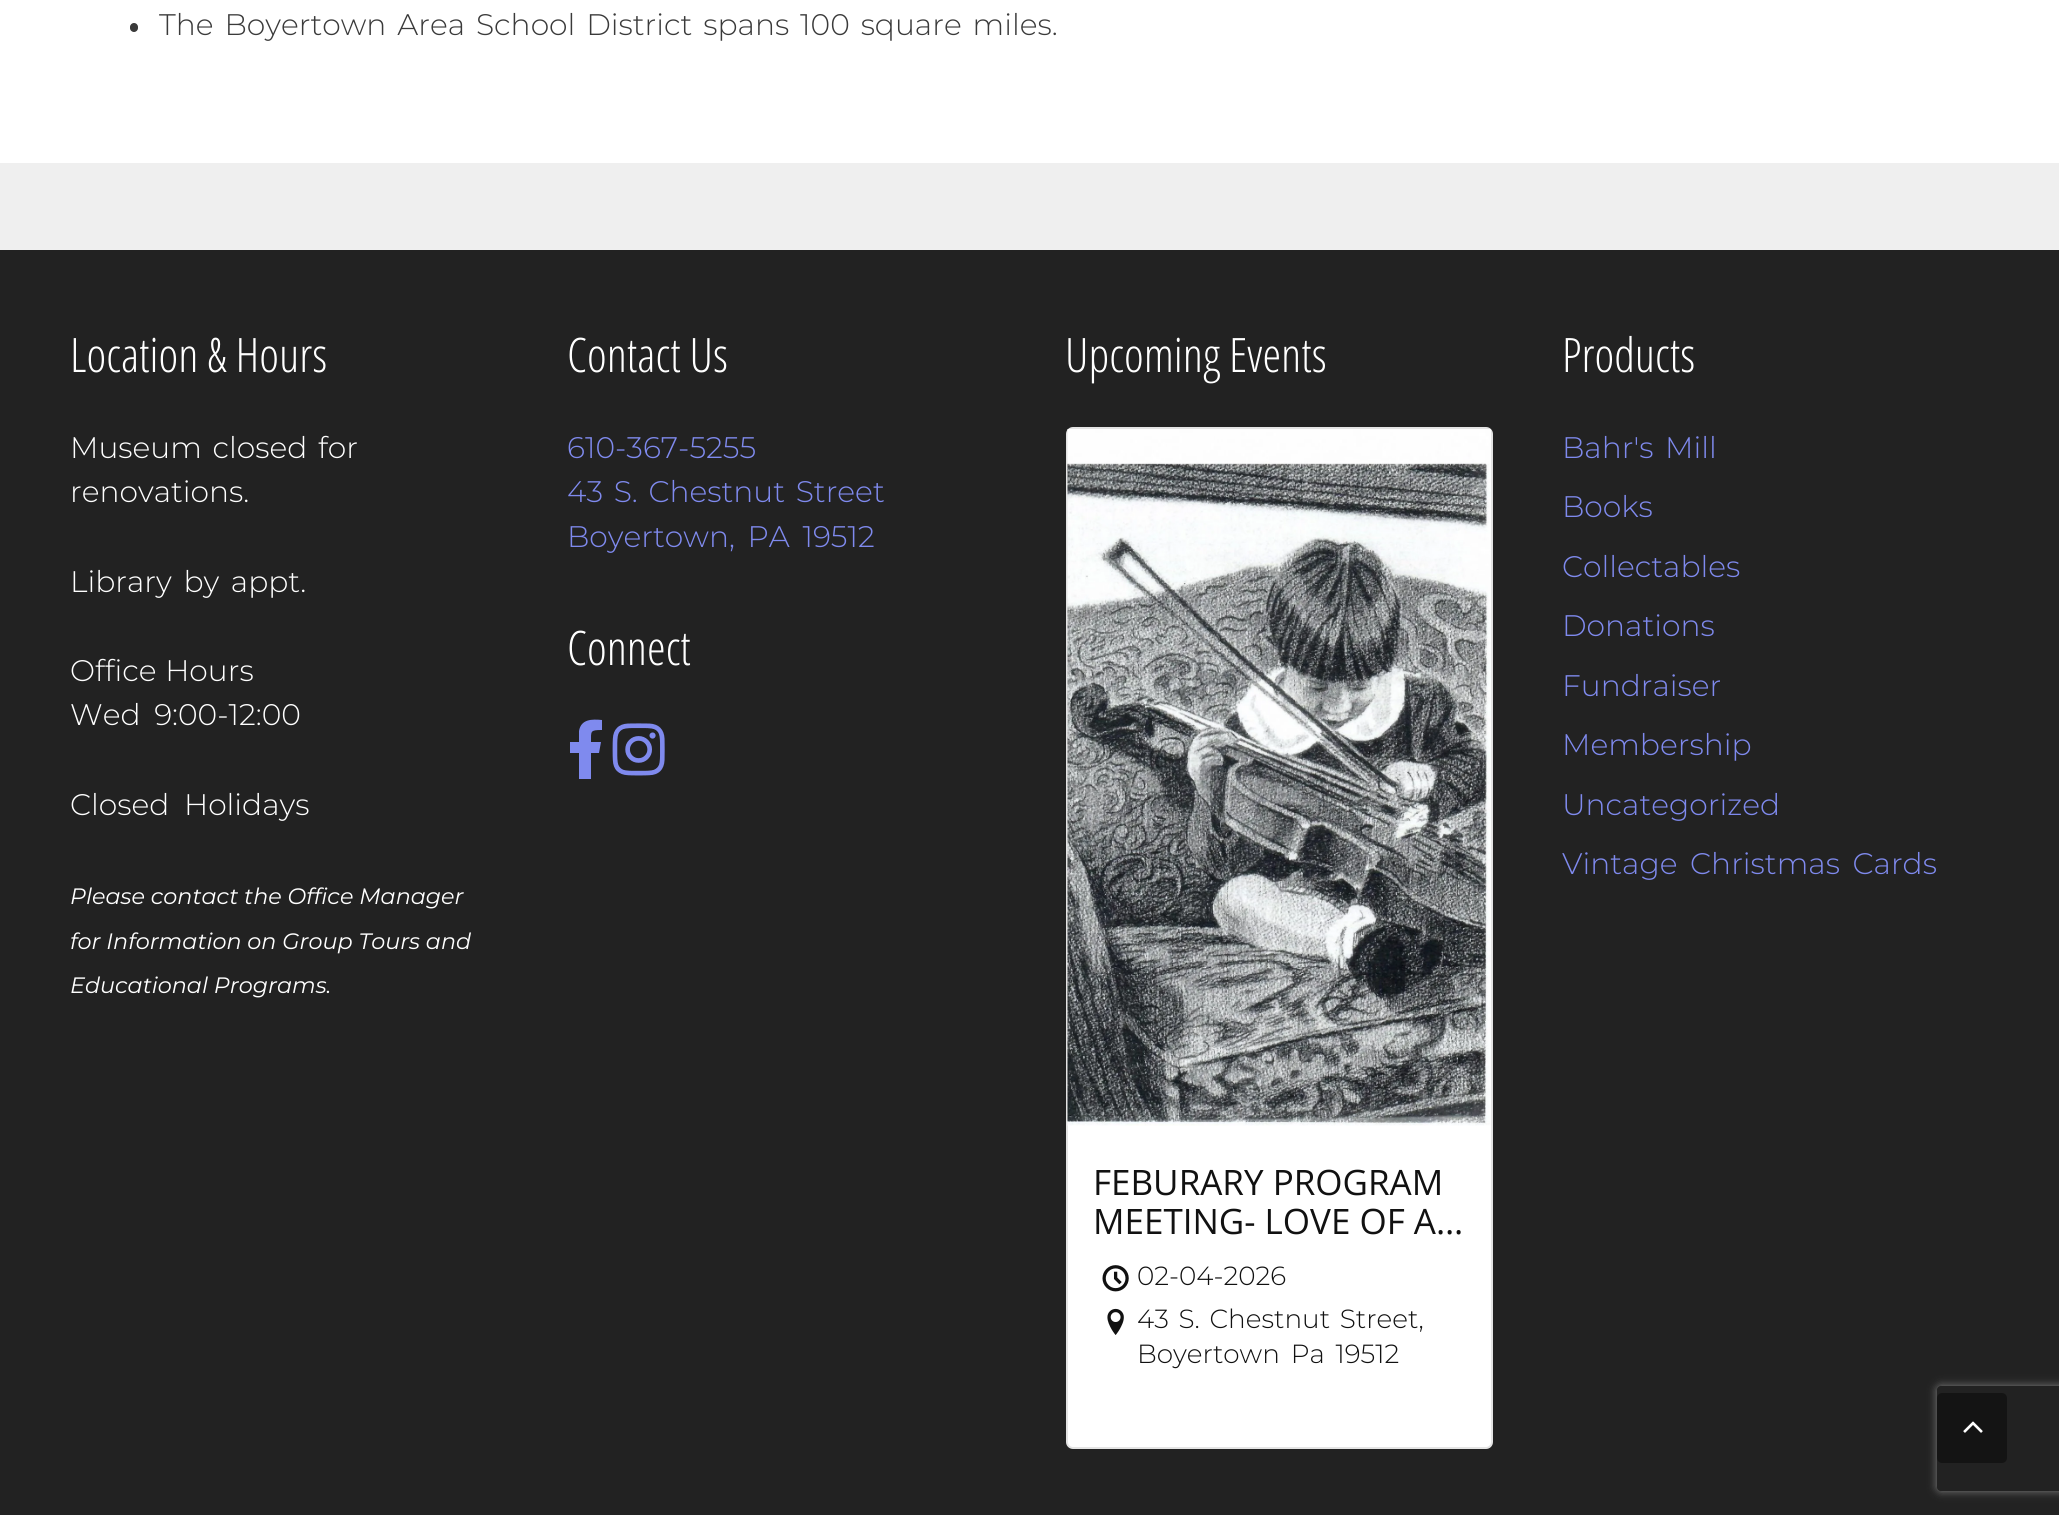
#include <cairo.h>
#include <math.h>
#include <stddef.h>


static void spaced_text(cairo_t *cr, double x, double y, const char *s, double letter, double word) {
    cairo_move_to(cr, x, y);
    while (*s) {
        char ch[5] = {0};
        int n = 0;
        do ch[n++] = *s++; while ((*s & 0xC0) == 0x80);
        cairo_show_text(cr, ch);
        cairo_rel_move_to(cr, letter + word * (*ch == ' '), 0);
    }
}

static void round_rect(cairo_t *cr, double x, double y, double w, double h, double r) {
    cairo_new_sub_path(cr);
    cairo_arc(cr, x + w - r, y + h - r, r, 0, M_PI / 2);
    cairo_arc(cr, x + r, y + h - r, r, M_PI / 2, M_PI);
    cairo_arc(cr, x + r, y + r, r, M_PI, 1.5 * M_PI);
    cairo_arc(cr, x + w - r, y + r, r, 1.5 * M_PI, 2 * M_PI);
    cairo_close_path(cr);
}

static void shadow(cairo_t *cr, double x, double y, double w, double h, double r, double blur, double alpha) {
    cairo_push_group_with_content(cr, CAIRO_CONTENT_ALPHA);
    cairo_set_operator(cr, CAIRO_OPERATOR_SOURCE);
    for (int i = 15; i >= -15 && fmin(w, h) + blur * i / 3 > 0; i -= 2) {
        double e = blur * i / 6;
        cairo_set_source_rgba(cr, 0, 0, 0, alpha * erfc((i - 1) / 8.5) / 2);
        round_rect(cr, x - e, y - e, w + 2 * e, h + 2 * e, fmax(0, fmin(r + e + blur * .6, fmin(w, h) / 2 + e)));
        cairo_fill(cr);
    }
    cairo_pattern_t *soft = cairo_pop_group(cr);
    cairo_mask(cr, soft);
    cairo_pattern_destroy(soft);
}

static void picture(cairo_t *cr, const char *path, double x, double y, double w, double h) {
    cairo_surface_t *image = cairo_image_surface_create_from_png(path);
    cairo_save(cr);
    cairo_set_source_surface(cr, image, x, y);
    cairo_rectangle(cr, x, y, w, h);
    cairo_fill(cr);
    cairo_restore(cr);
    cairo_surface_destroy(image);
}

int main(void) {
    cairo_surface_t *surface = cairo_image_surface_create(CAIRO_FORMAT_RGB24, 2059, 1515);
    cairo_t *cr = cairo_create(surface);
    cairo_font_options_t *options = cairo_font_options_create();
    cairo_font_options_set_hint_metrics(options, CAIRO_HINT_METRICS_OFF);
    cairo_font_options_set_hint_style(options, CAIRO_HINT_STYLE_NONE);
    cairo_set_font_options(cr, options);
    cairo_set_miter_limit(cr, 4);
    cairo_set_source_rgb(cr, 0.937, 0.937, 0.937);
    cairo_paint(cr);
    cairo_set_source_rgb(cr, 1, 1, 1);
    cairo_rectangle(cr, 0, 0, 2059, 163);
    cairo_fill(cr);
    cairo_set_source_rgb(cr, 0.227, 0.227, 0.227);
    round_rect(cr, 130, 23, 8, 9, 4);
    cairo_fill(cr);
    cairo_select_font_face(cr, "Montserrat Light", CAIRO_FONT_SLANT_NORMAL, CAIRO_FONT_WEIGHT_NORMAL);
    cairo_set_font_size(cr, 29.75);
    spaced_text(cr, 159, 35, "The Boyertown Area School District spans 100 square miles.", 0, 3.25);
    cairo_set_source_rgb(cr, 0.133, 0.133, 0.133);
    cairo_rectangle(cr, 0, 250, 2059, 1265);
    cairo_fill(cr);
    cairo_select_font_face(cr, "Open Sans Condensed Light", CAIRO_FONT_SLANT_NORMAL, CAIRO_FONT_WEIGHT_NORMAL);
    cairo_set_font_size(cr, 47.5);
    cairo_set_source_rgb(cr, 1, 1, 1);
    cairo_move_to(cr, 70, 372);
    cairo_show_text(cr, "Location & Hours");
    cairo_select_font_face(cr, "Montserrat Light", CAIRO_FONT_SLANT_NORMAL, CAIRO_FONT_WEIGHT_NORMAL);
    cairo_set_font_size(cr, 29.75);
    spaced_text(cr, 70, 458, "Museum closed for", 0, 3);
    cairo_move_to(cr, 70, 502);
    cairo_show_text(cr, "renovations.");
    spaced_text(cr, 70, 592, "Library by appt.", 0, 4);
    spaced_text(cr, 70, 681, "Office Hours", 0, 1);
    spaced_text(cr, 70, 725, "Wed 9:00-12:00", 0, 6);
    spaced_text(cr, 70, 815, "Closed Holidays", 0, 7);
    cairo_select_font_face(cr, "Montserrat", CAIRO_FONT_SLANT_ITALIC, CAIRO_FONT_WEIGHT_NORMAL);
    cairo_set_font_size(cr, 22.3);
    cairo_move_to(cr, 70, 904);
    cairo_show_text(cr, "Please contact the Office Manager");
    cairo_move_to(cr, 70, 949);
    cairo_show_text(cr, "for Information on Group Tours and");
    cairo_move_to(cr, 70, 993);
    cairo_show_text(cr, "Educational Programs.");
    cairo_select_font_face(cr, "Open Sans Condensed Light", CAIRO_FONT_SLANT_NORMAL, CAIRO_FONT_WEIGHT_NORMAL);
    cairo_set_font_size(cr, 47.5);
    cairo_move_to(cr, 567, 372);
    cairo_show_text(cr, "Contact Us");
    cairo_select_font_face(cr, "Montserrat Light", CAIRO_FONT_SLANT_NORMAL, CAIRO_FONT_WEIGHT_NORMAL);
    cairo_set_font_size(cr, 29.75);
    cairo_set_source_rgb(cr, 0.498, 0.541, 0.933);
    cairo_move_to(cr, 567, 458);
    cairo_show_text(cr, "610-367-5255");
    spaced_text(cr, 567, 502, "43 S. Chestnut Street", 0, 3);
    spaced_text(cr, 567, 547, "Boyertown, PA 19512", 0, 5);
    cairo_select_font_face(cr, "Open Sans Condensed Light", CAIRO_FONT_SLANT_NORMAL, CAIRO_FONT_WEIGHT_NORMAL);
    cairo_set_font_size(cr, 47.5);
    cairo_set_source_rgb(cr, 1, 1, 1);
    cairo_move_to(cr, 567, 665);
    cairo_show_text(cr, "Connect");
    cairo_set_source_rgb(cr, 0.498, 0.541, 0.933);
    cairo_new_path(cr);
    cairo_move_to(cr, 599, 753);
    cairo_line_to(cr, 591, 753);
    cairo_line_to(cr, 591, 779);
    cairo_line_to(cr, 579, 779);
    cairo_line_to(cr, 579, 753);
    cairo_line_to(cr, 570, 753);
    cairo_line_to(cr, 570, 742);
    cairo_line_to(cr, 579, 742);
    cairo_line_to(cr, 579, 731);
    cairo_curve_to(cr, 581, 719, 592, 719, 602, 720);
    cairo_line_to(cr, 602, 730);
    cairo_curve_to(cr, 590, 730, 591, 731, 591, 742);
    cairo_line_to(cr, 601, 742);
    cairo_close_path(cr);
    cairo_fill(cr);
    picture(cr, "img1.png", 612, 723, 53, 53);
    cairo_set_source_rgb(cr, 1, 1, 1);
    cairo_move_to(cr, 1065, 372);
    cairo_show_text(cr, "Upcoming Events");
    round_rect(cr, 1067, 428, 425, 1020, 6);
    cairo_fill_preserve(cr);
    cairo_set_source_rgb(cr, 0.894, 0.894, 0.894);
    cairo_stroke(cr);
    picture(cr, "img2.png", 1067, 429, 424, 697);
    cairo_select_font_face(cr, "Open Sans", CAIRO_FONT_SLANT_NORMAL, CAIRO_FONT_WEIGHT_NORMAL);
    cairo_set_font_size(cr, 35);
    cairo_set_source_rgb(cr, 0.067, 0.067, 0.067);
    cairo_move_to(cr, 1093, 1195);
    cairo_show_text(cr, "FEBURARY PROGRAM");
    cairo_move_to(cr, 1093, 1234);
    cairo_show_text(cr, "MEETING- LOVE OF A…");
    picture(cr, "img3.png", 1102, 1265, 27, 27);
    cairo_select_font_face(cr, "Montserrat Light", CAIRO_FONT_SLANT_NORMAL, CAIRO_FONT_WEIGHT_NORMAL);
    cairo_set_font_size(cr, 26.25);
    cairo_move_to(cr, 1137, 1285);
    cairo_show_text(cr, "02-04-2026");
    picture(cr, "img4.png", 1107, 1308, 17, 27);
    spaced_text(cr, 1137, 1328, "43 S. Chestnut Street,", 0, 3);
    spaced_text(cr, 1137, 1363, "Boyertown Pa 19512", 0, 4);
    cairo_select_font_face(cr, "Open Sans Condensed Light", CAIRO_FONT_SLANT_NORMAL, CAIRO_FONT_WEIGHT_NORMAL);
    cairo_set_font_size(cr, 47.5);
    cairo_set_source_rgb(cr, 1, 1, 1);
    cairo_move_to(cr, 1562, 372);
    cairo_show_text(cr, "Products");
    cairo_select_font_face(cr, "Montserrat Light", CAIRO_FONT_SLANT_NORMAL, CAIRO_FONT_WEIGHT_NORMAL);
    cairo_set_font_size(cr, 29.75);
    cairo_set_source_rgb(cr, 0.498, 0.541, 0.933);
    spaced_text(cr, 1562, 458, "Bahr's Mill", 0, 4);
    cairo_move_to(cr, 1562, 517);
    cairo_show_text(cr, "Books");
    cairo_move_to(cr, 1562, 577);
    cairo_show_text(cr, "Collectables");
    cairo_move_to(cr, 1562, 636);
    cairo_show_text(cr, "Donations");
    cairo_move_to(cr, 1562, 696);
    cairo_show_text(cr, "Fundraiser");
    cairo_move_to(cr, 1562, 755);
    cairo_show_text(cr, "Membership");
    cairo_move_to(cr, 1562, 815);
    cairo_show_text(cr, "Uncategorized");
    spaced_text(cr, 1562, 874, "Vintage Christmas Cards", 0, 5);
    cairo_save(cr);
    cairo_set_fill_rule(cr, CAIRO_FILL_RULE_EVEN_ODD);
    cairo_new_path(cr);
    cairo_move_to(cr, 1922, 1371);
    cairo_line_to(cr, 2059, 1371);
    cairo_line_to(cr, 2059, 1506);
    cairo_line_to(cr, 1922, 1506);
    cairo_close_path(cr);
    cairo_move_to(cr, 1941, 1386);
    cairo_line_to(cr, 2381, 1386);
    cairo_curve_to(cr, 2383, 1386, 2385, 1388, 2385, 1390);
    cairo_line_to(cr, 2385, 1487);
    cairo_curve_to(cr, 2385, 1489, 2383, 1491, 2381, 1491);
    cairo_line_to(cr, 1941, 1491);
    cairo_curve_to(cr, 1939, 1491, 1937, 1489, 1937, 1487);
    cairo_line_to(cr, 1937, 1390);
    cairo_curve_to(cr, 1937, 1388, 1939, 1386, 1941, 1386);
    cairo_close_path(cr);
    cairo_clip(cr);
    cairo_set_source_rgb(cr, 0.502, 0.502, 0.502);
    shadow(cr, 1937, 1386, 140, 105, 4, 4.5, 1);
    cairo_restore(cr);
    cairo_set_source_rgba(cr, 0, 0, 0, 0.4);
    round_rect(cr, 1937, 1393, 70, 70, 5);
    cairo_fill(cr);
    picture(cr, "img5.png", 1963, 1421, 20, 12);
    cairo_surface_write_to_png(surface, "page.png");
    cairo_font_options_destroy(options);
    cairo_destroy(cr);
    cairo_surface_destroy(surface);
    return 0;
}
